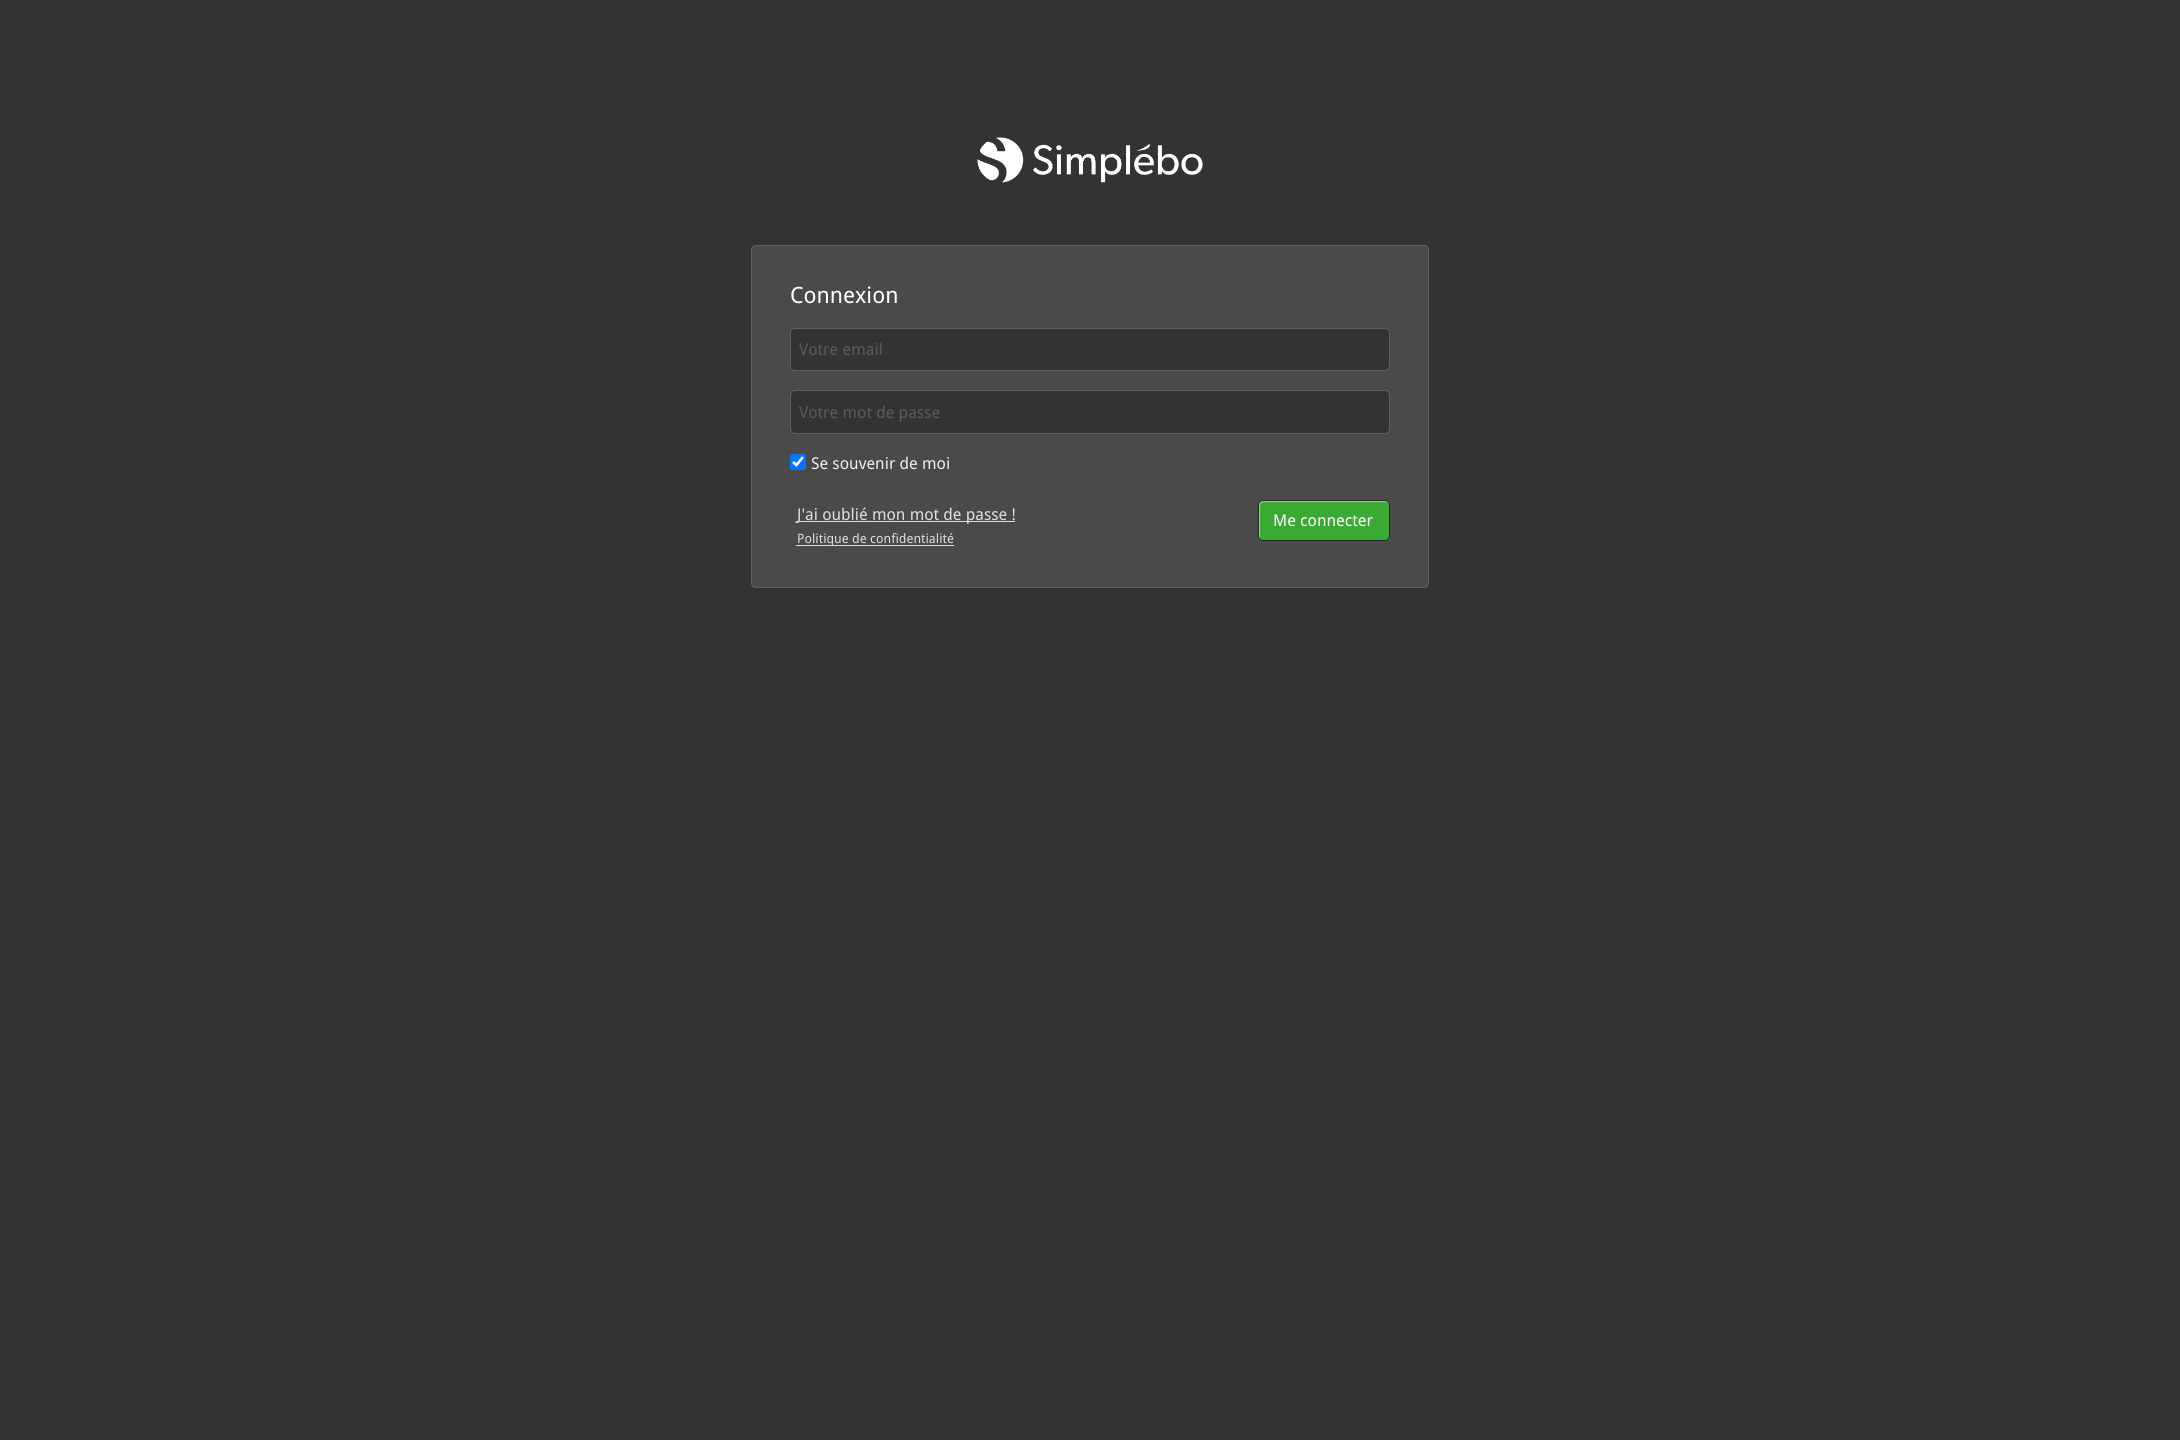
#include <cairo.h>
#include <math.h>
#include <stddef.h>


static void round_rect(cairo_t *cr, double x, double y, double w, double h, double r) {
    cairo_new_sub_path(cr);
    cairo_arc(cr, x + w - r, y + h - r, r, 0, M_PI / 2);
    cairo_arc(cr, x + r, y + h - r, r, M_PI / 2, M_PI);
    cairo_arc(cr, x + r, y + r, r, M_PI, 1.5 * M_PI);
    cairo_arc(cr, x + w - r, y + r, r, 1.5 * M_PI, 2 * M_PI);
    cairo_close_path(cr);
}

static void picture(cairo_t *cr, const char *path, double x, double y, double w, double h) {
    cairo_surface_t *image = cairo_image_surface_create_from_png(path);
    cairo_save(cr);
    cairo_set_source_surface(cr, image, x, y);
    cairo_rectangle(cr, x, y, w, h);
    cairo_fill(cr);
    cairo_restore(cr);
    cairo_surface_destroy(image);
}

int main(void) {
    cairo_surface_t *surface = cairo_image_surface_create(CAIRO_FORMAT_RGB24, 2180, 1440);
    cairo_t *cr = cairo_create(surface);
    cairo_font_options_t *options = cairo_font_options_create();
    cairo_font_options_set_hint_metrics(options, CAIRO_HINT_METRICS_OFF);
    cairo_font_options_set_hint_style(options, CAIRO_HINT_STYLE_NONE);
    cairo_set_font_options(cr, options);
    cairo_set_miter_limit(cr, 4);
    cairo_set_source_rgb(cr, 0.2, 0.2, 0.2);
    cairo_paint(cr);
    picture(cr, "img1.png", 977, 137, 226, 46);
    cairo_set_source_rgb(cr, 0.29, 0.29, 0.29);
    round_rect(cr, 751.5, 245.5, 677, 342, 4.5);
    cairo_fill_preserve(cr);
    cairo_set_source_rgb(cr, 0.369, 0.369, 0.369);
    cairo_set_line_width(cr, 1);
    cairo_stroke(cr);
    cairo_select_font_face(cr, "Droid Sans", CAIRO_FONT_SLANT_NORMAL, CAIRO_FONT_WEIGHT_NORMAL);
    cairo_set_font_size(cr, 22.5);
    cairo_set_source_rgb(cr, 1, 1, 1);
    cairo_move_to(cr, 790, 303);
    cairo_show_text(cr, "Connexion");
    cairo_set_source_rgb(cr, 0.2, 0.2, 0.2);
    round_rect(cr, 790.5, 328.5, 599, 42, 4.5);
    cairo_fill_preserve(cr);
    cairo_set_source_rgb(cr, 0.369, 0.369, 0.369);
    cairo_stroke(cr);
    cairo_set_font_size(cr, 16.25);
    cairo_set_source_rgb(cr, 0.353, 0.353, 0.353);
    cairo_move_to(cr, 799, 355);
    cairo_show_text(cr, "Votre email");
    cairo_set_source_rgb(cr, 0.2, 0.2, 0.2);
    round_rect(cr, 790.5, 390.5, 599, 43, 4.5);
    cairo_fill_preserve(cr);
    cairo_set_source_rgb(cr, 0.369, 0.369, 0.369);
    cairo_stroke(cr);
    cairo_set_source_rgb(cr, 0.353, 0.353, 0.353);
    cairo_move_to(cr, 799, 418);
    cairo_show_text(cr, "Votre mot de passe");
    cairo_set_source_rgb(cr, 0, 0.459, 1);
    round_rect(cr, 790, 454, 16, 16, 2.5);
    cairo_fill(cr);
    cairo_new_path(cr);
    cairo_move_to(cr, 793, 462);
    cairo_line_to(cr, 796.5, 465);
    cairo_line_to(cr, 803, 457);
    cairo_set_source_rgb(cr, 1, 1, 1);
    cairo_set_line_width(cr, 2.6);
    cairo_stroke(cr);
    cairo_set_source_rgb(cr, 0.925, 0.925, 0.925);
    cairo_move_to(cr, 811, 469);
    cairo_show_text(cr, "Se souvenir de moi");
    cairo_set_source_rgb(cr, 0.867, 0.867, 0.867);
    cairo_rectangle(cr, 796, 521, 219, 1);
    cairo_fill(cr);
    cairo_move_to(cr, 797, 520);
    cairo_show_text(cr, "J'ai oublié mon mot de passe !");
    cairo_rectangle(cr, 796, 545, 158, 1);
    cairo_fill(cr);
    cairo_set_font_size(cr, 13);
    cairo_move_to(cr, 797, 543);
    cairo_show_text(cr, "Politique de confidentialité");
    cairo_set_source_rgb(cr, 0.227, 0.667, 0.208);
    round_rect(cr, 1258, 500, 132, 41, 5);
    cairo_fill(cr);
    cairo_set_source_rgb(cr, 0.616, 0.835, 0.604);
    cairo_new_path(cr);
    cairo_move_to(cr, 1264, 502);
    cairo_line_to(cr, 1386, 502);
    cairo_line_to(cr, 1388, 503);
    cairo_curve_to(cr, 1388, 502, 1386, 501, 1385, 501);
    cairo_line_to(cr, 1263, 501);
    cairo_curve_to(cr, 1261, 501, 1259, 503, 1259, 505);
    cairo_line_to(cr, 1259, 536);
    cairo_curve_to(cr, 1259, 537, 1259, 538, 1260, 539);
    cairo_line_to(cr, 1260, 511);
    cairo_curve_to(cr, 1260, 508, 1259, 502, 1264, 502);
    cairo_close_path(cr);
    cairo_fill(cr);
    round_rect(cr, 1258.5, 500.5, 131, 40, 4.5);
    cairo_set_source_rgb(cr, 0.145, 0.145, 0.145);
    cairo_set_line_width(cr, 1);
    cairo_stroke(cr);
    cairo_set_font_size(cr, 16.25);
    cairo_set_source_rgb(cr, 1, 1, 1);
    cairo_move_to(cr, 1273, 526);
    cairo_show_text(cr, "Me connecter");
    cairo_surface_write_to_png(surface, "page.png");
    cairo_font_options_destroy(options);
    cairo_destroy(cr);
    cairo_surface_destroy(surface);
    return 0;
}
